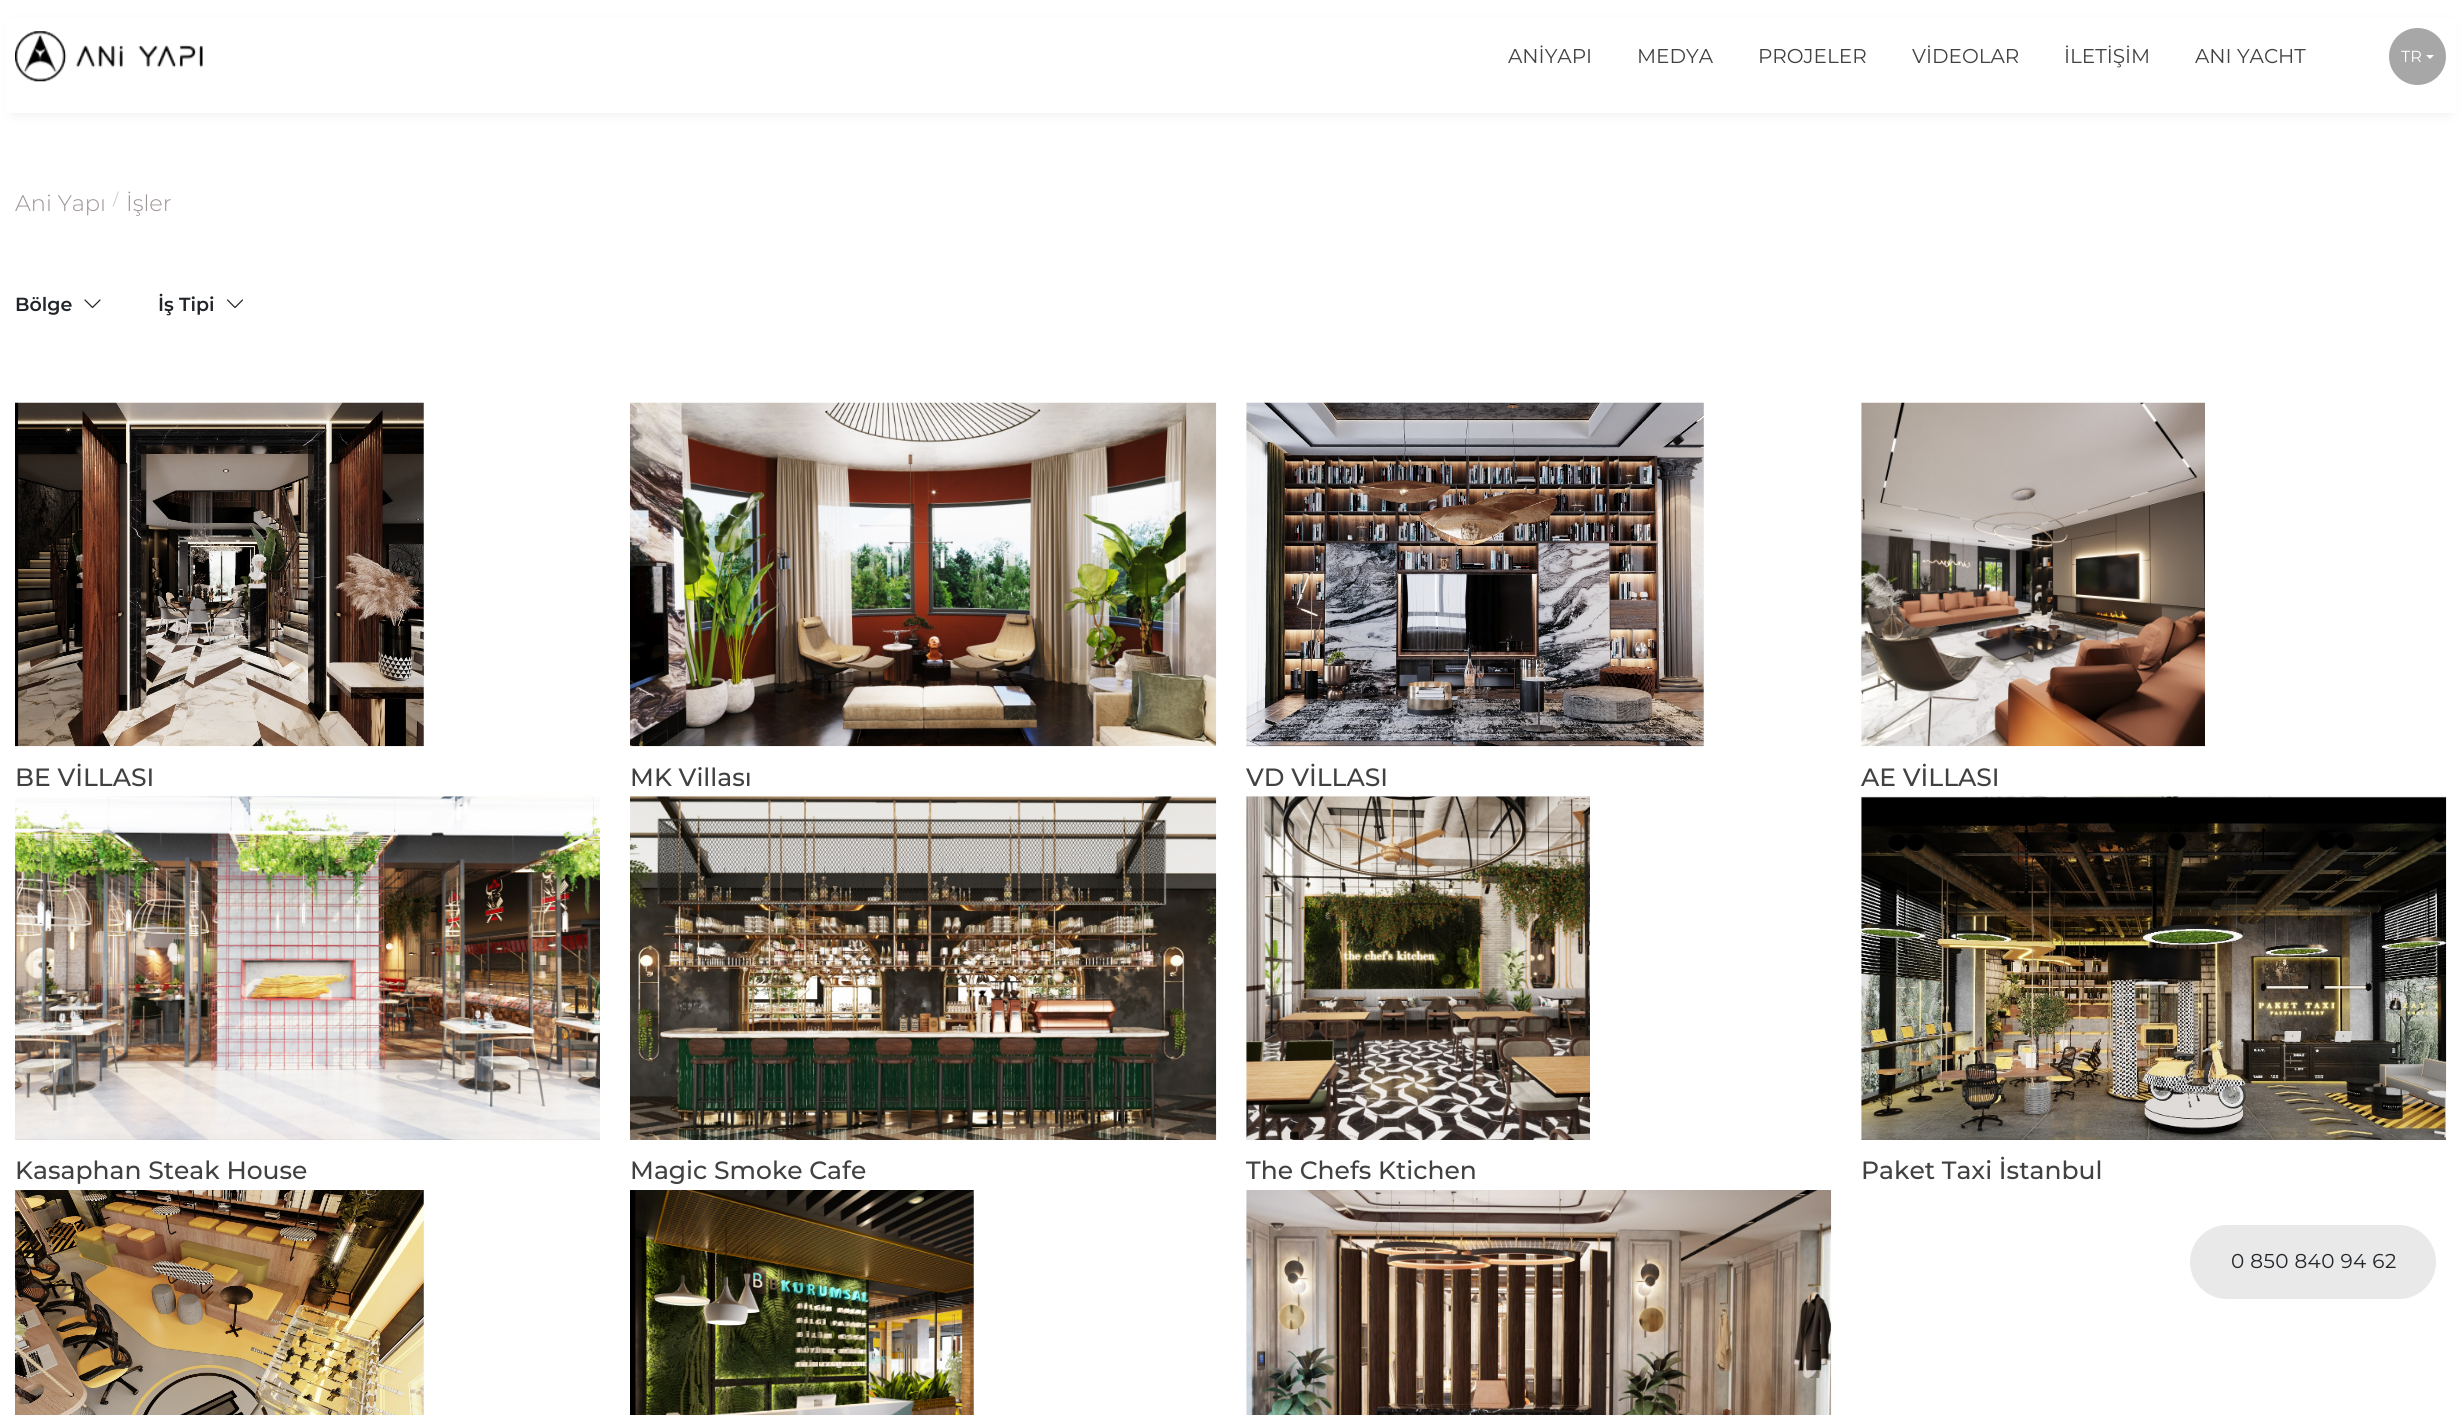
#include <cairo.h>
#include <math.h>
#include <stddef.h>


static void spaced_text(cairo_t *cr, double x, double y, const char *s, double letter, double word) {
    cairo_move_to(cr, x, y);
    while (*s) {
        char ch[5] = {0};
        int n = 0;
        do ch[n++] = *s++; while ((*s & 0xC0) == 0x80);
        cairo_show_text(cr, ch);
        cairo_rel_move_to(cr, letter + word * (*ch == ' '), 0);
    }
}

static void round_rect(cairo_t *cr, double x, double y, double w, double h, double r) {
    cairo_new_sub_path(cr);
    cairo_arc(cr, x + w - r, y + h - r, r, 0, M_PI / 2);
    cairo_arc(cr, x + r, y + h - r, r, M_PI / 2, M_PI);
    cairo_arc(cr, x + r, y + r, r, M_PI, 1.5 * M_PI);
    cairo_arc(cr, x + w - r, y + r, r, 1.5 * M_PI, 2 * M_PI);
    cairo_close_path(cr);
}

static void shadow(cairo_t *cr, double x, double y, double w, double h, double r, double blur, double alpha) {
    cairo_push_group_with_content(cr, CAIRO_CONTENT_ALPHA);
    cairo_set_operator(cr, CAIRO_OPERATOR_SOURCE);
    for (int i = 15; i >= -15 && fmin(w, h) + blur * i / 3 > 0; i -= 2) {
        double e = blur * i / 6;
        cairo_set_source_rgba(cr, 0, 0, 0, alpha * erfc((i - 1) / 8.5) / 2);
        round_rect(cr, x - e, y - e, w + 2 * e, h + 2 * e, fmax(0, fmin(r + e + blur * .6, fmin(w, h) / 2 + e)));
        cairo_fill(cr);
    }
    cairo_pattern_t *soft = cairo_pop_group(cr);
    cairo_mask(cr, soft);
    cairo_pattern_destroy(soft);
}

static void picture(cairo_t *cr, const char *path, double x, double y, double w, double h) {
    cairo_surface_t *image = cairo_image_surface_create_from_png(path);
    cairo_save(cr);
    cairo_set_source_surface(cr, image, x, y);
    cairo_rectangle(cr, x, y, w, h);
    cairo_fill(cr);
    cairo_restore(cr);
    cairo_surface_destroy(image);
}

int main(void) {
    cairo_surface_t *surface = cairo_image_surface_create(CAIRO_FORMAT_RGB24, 2461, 1415);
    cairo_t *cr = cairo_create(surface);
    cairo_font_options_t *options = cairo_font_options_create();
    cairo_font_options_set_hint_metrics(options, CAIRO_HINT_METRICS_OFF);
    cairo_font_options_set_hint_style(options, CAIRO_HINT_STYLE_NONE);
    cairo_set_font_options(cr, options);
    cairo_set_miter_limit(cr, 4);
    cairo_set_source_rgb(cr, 1, 1, 1);
    cairo_paint(cr);
    cairo_set_source_rgb(cr, 0.129, 0.137, 0.149);
    shadow(cr, 13, 25, 2436, 88, 0, 6, 0.1);
    cairo_set_source_rgb(cr, 1, 1, 1);
    cairo_rectangle(cr, 6, 18, 2450, 95);
    cairo_fill(cr);
    picture(cr, "img1.png", 15, 31, 188, 51);
    cairo_select_font_face(cr, "Montserrat", CAIRO_FONT_SLANT_NORMAL, CAIRO_FONT_WEIGHT_NORMAL);
    cairo_set_font_size(cr, 20);
    cairo_set_source_rgb(cr, 0.255, 0.255, 0.255);
    cairo_move_to(cr, 1508, 63);
    cairo_show_text(cr, "ANİYAPI");
    cairo_move_to(cr, 1637, 63);
    cairo_show_text(cr, "MEDYA");
    cairo_move_to(cr, 1758, 63);
    cairo_show_text(cr, "PROJELER");
    cairo_move_to(cr, 1912, 63);
    cairo_show_text(cr, "VİDEOLAR");
    cairo_move_to(cr, 2064, 63);
    cairo_show_text(cr, "İLETİŞİM");
    cairo_move_to(cr, 2195, 63);
    cairo_show_text(cr, "ANI YACHT");
    cairo_set_source_rgb(cr, 0.655, 0.655, 0.655);
    cairo_new_path(cr);
    cairo_arc(cr, 2417.5, 56.5, 28.5, 0, 2 * M_PI);
    cairo_fill(cr);
    cairo_set_font_size(cr, 16);
    cairo_set_source_rgb(cr, 1, 1, 1);
    cairo_move_to(cr, 2401, 62);
    cairo_show_text(cr, "TR");
    cairo_new_path(cr);
    cairo_move_to(cr, 2426, 55);
    cairo_line_to(cr, 2434, 55);
    cairo_line_to(cr, 2430, 59);
    cairo_close_path(cr);
    cairo_fill(cr);
    cairo_select_font_face(cr, "Montserrat Light", CAIRO_FONT_SLANT_NORMAL, CAIRO_FONT_WEIGHT_NORMAL);
    cairo_set_font_size(cr, 22.5);
    cairo_set_source_rgb(cr, 0.616, 0.576, 0.576);
    cairo_move_to(cr, 15, 211);
    cairo_show_text(cr, "Ani Yapı");
    cairo_select_font_face(cr, "Montserrat", CAIRO_FONT_SLANT_NORMAL, CAIRO_FONT_WEIGHT_NORMAL);
    cairo_set_font_size(cr, 16);
    cairo_set_source_rgb(cr, 0.808, 0.788, 0.788);
    cairo_move_to(cr, 113, 205);
    cairo_show_text(cr, "/");
    cairo_select_font_face(cr, "Montserrat Light", CAIRO_FONT_SLANT_NORMAL, CAIRO_FONT_WEIGHT_NORMAL);
    cairo_set_font_size(cr, 22.5);
    cairo_set_source_rgb(cr, 0.616, 0.576, 0.576);
    cairo_move_to(cr, 126, 211);
    cairo_show_text(cr, "İşler");
    cairo_select_font_face(cr, "Montserrat SemiBold", CAIRO_FONT_SLANT_NORMAL, CAIRO_FONT_WEIGHT_NORMAL);
    cairo_set_font_size(cr, 19);
    cairo_set_source_rgb(cr, 0.129, 0.145, 0.161);
    cairo_move_to(cr, 15, 311);
    cairo_show_text(cr, "Bölge");
    picture(cr, "img2.png", 84, 299, 17, 10);
    cairo_move_to(cr, 158, 311);
    cairo_show_text(cr, "İş Tipi");
    picture(cr, "img3.png", 227, 299, 16, 9);
    picture(cr, "img4.png", 15, 402, 409, 345);
    cairo_select_font_face(cr, "Montserrat Medium", CAIRO_FONT_SLANT_NORMAL, CAIRO_FONT_WEIGHT_NORMAL);
    cairo_set_font_size(cr, 25);
    cairo_set_source_rgb(cr, 0.255, 0.255, 0.255);
    cairo_move_to(cr, 15, 786);
    cairo_show_text(cr, "BE VİLLASI");
    picture(cr, "img5.png", 630, 402, 587, 345);
    cairo_move_to(cr, 630, 786);
    cairo_show_text(cr, "MK Villası");
    picture(cr, "img6.png", 1246, 402, 458, 345);
    cairo_move_to(cr, 1246, 786);
    cairo_show_text(cr, "VD VİLLASI");
    picture(cr, "img7.png", 1861, 402, 344, 345);
    cairo_move_to(cr, 1861, 786);
    cairo_show_text(cr, "AE VİLLASI");
    picture(cr, "img8.png", 15, 796, 585, 344);
    cairo_move_to(cr, 15, 1179);
    cairo_show_text(cr, "Kasaphan Steak House");
    picture(cr, "img9.png", 630, 796, 587, 344);
    cairo_move_to(cr, 630, 1179);
    cairo_show_text(cr, "Magic Smoke Cafe");
    picture(cr, "img10.png", 1246, 796, 344, 344);
    cairo_move_to(cr, 1246, 1179);
    cairo_show_text(cr, "The Chefs Ktichen");
    picture(cr, "img11.png", 1861, 796, 586, 344);
    cairo_move_to(cr, 1861, 1179);
    cairo_show_text(cr, "Paket Taxi İstanbul");
    picture(cr, "img12.png", 15, 1190, 409, 225);
    picture(cr, "img13.png", 630, 1190, 344, 225);
    picture(cr, "img14.png", 1246, 1190, 586, 225);
    cairo_set_source_rgb(cr, 0.914, 0.914, 0.914);
    round_rect(cr, 2190, 1225, 246, 74, 37);
    cairo_fill(cr);
    cairo_select_font_face(cr, "Montserrat", CAIRO_FONT_SLANT_NORMAL, CAIRO_FONT_WEIGHT_NORMAL);
    cairo_set_font_size(cr, 20);
    cairo_set_source_rgb(cr, 0.129, 0.145, 0.161);
    spaced_text(cr, 2231, 1268, "0 850 840 94 62", 0.4, 0);
    cairo_surface_write_to_png(surface, "page.png");
    cairo_font_options_destroy(options);
    cairo_destroy(cr);
    cairo_surface_destroy(surface);
    return 0;
}
